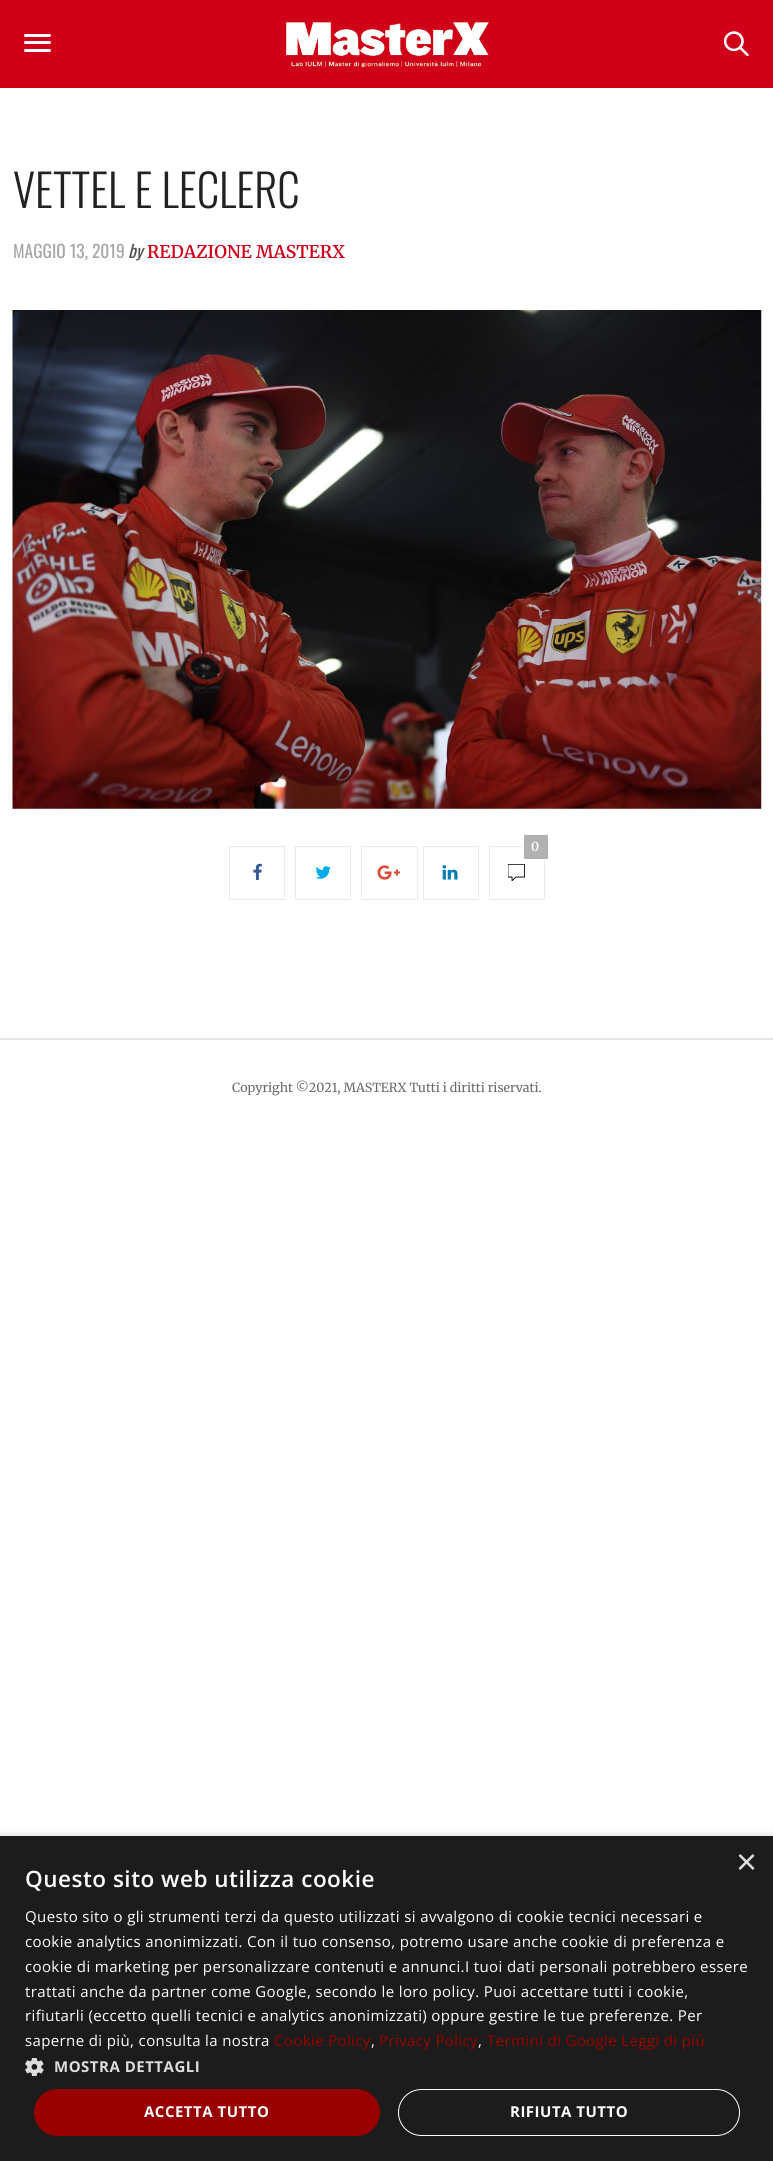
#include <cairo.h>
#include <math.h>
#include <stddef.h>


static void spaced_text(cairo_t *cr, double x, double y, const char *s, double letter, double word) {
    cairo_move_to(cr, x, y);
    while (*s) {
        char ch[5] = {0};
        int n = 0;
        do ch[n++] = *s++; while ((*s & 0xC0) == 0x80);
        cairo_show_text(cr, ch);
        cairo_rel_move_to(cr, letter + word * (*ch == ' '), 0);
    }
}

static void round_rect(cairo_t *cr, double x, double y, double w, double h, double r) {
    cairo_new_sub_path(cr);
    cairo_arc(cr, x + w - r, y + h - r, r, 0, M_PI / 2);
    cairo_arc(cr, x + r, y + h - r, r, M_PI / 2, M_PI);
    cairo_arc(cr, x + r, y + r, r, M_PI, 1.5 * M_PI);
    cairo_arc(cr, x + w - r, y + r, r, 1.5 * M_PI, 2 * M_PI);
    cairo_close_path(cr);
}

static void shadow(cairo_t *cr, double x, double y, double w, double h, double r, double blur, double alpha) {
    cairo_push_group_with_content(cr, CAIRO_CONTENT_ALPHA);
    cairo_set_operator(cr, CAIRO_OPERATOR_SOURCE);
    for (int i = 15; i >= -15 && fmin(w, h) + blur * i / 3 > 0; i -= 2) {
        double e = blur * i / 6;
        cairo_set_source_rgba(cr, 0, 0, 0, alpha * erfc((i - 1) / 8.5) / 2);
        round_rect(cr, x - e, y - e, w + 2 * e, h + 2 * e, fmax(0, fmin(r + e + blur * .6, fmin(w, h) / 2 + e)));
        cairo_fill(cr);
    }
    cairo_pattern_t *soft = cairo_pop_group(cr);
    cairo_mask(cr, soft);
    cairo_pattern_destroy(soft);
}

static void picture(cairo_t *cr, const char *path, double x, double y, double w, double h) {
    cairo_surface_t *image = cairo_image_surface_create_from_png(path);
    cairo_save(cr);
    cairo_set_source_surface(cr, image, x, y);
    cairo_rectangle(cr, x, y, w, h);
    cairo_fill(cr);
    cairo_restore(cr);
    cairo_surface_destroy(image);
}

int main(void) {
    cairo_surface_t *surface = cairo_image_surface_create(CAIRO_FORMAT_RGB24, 773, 2161);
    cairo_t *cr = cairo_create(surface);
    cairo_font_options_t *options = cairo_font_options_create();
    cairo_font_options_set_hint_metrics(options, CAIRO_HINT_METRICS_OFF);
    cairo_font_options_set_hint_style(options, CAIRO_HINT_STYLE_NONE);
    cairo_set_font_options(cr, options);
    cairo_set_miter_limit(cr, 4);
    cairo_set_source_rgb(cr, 1, 1, 1);
    cairo_paint(cr);
    cairo_set_source_rgb(cr, 0.82, 0, 0.098);
    cairo_rectangle(cr, 0, 0, 773, 88);
    cairo_fill(cr);
    cairo_set_source_rgb(cr, 1, 1, 1);
    round_rect(cr, 24, 34, 27, 3, 1.5);
    cairo_fill(cr);
    round_rect(cr, 24, 41, 27, 3, 1.5);
    cairo_fill(cr);
    round_rect(cr, 24, 49, 27, 3, 1.5);
    cairo_fill(cr);
    picture(cr, "img1.png", 286, 22, 203, 46);
    picture(cr, "img2.png", 724, 31, 25, 25);
    cairo_select_font_face(cr, "Oswald Light", CAIRO_FONT_SLANT_NORMAL, CAIRO_FONT_WEIGHT_NORMAL);
    cairo_set_font_size(cr, 45);
    cairo_set_source_rgb(cr, 0.133, 0.133, 0.133);
    cairo_move_to(cr, 13, 208);
    cairo_show_text(cr, "VETTEL E LECLERC");
    cairo_select_font_face(cr, "Oswald", CAIRO_FONT_SLANT_NORMAL, CAIRO_FONT_WEIGHT_NORMAL);
    cairo_set_font_size(cr, 17.5);
    cairo_set_source_rgb(cr, 0.655, 0.655, 0.655);
    cairo_move_to(cr, 13, 258);
    cairo_show_text(cr, "MAGGIO 13, 2019");
    cairo_select_font_face(cr, "Oswald", CAIRO_FONT_SLANT_ITALIC, CAIRO_FONT_WEIGHT_NORMAL);
    cairo_set_source_rgb(cr, 0.329, 0.325, 0.325);
    cairo_move_to(cr, 128, 258);
    cairo_show_text(cr, "by");
    cairo_select_font_face(cr, "Merriweather SemiBold", CAIRO_FONT_SLANT_NORMAL, CAIRO_FONT_WEIGHT_NORMAL);
    cairo_set_source_rgb(cr, 0.82, 0, 0.098);
    cairo_move_to(cr, 147, 258);
    cairo_show_text(cr, "REDAZIONE MASTERX");
    picture(cr, "img3.png", 12, 310, 750, 499);
    cairo_rectangle(cr, 229.5, 846.5, 55, 53);
    cairo_set_source_rgb(cr, 0.918, 0.918, 0.918);
    cairo_set_line_width(cr, 1);
    cairo_stroke(cr);
    picture(cr, "img4.png", 253, 863, 9, 17);
    cairo_rectangle(cr, 295.5, 846.5, 55, 53);
    cairo_stroke(cr);
    picture(cr, "img5.png", 315, 866, 16, 13);
    cairo_rectangle(cr, 361.5, 846.5, 56, 53);
    cairo_stroke(cr);
    picture(cr, "img6.png", 377, 865, 23, 15);
    cairo_rectangle(cr, 423.5, 846.5, 55, 53);
    cairo_stroke(cr);
    picture(cr, "img7.png", 442, 865, 16, 15);
    cairo_rectangle(cr, 489.5, 846.5, 55, 53);
    cairo_stroke(cr);
    cairo_set_source_rgb(cr, 0.694, 0.694, 0.694);
    cairo_rectangle(cr, 524, 835, 24, 24);
    cairo_fill(cr);
    cairo_set_source_rgb(cr, 1, 1, 1);
    cairo_rectangle(cr, 544, 859, 4, 1);
    cairo_fill(cr);
    cairo_rectangle(cr, 523, 846, 1, 1);
    cairo_fill(cr);
    cairo_set_font_size(cr, 12.5);
    cairo_move_to(cr, 531, 851);
    cairo_show_text(cr, "0");
    picture(cr, "img8.png", 508, 864, 17, 17);
    cairo_set_source_rgb(cr, 0.902, 0.902, 0.902);
    cairo_rectangle(cr, 0, 1038, 773, 2);
    cairo_fill(cr);
    cairo_select_font_face(cr, "Merriweather", CAIRO_FONT_SLANT_NORMAL, CAIRO_FONT_WEIGHT_NORMAL);
    cairo_set_source_rgb(cr, 0.416, 0.416, 0.416);
    cairo_move_to(cr, 232, 1092);
    cairo_show_text(cr, "Copyright ©2021, MASTERX Tutti i diritti riservati.");
    cairo_set_source_rgb(cr, 0, 0, 0);
    shadow(cr, 1, 1839, 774, 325, 0, 5, 0.35);
    cairo_set_source_rgb(cr, 0.11, 0.11, 0.11);
    cairo_rectangle(cr, 0, 1836, 773, 325);
    cairo_fill(cr);
    cairo_select_font_face(cr, "Liberation Sans", CAIRO_FONT_SLANT_NORMAL, CAIRO_FONT_WEIGHT_NORMAL);
    cairo_set_font_size(cr, 36);
    cairo_set_source_rgb(cr, 0.867, 0.867, 0.867);
    cairo_move_to(cr, 736, 1874);
    cairo_show_text(cr, "×");
    cairo_select_font_face(cr, "Open Sans SemiBold", CAIRO_FONT_SLANT_NORMAL, CAIRO_FONT_WEIGHT_NORMAL);
    cairo_set_font_size(cr, 22.5);
    cairo_set_source_rgb(cr, 1, 1, 1);
    spaced_text(cr, 25, 1887, "Questo sito web utilizza cookie", 0.5, 0);
    cairo_select_font_face(cr, "Open Sans", CAIRO_FONT_SLANT_NORMAL, CAIRO_FONT_WEIGHT_NORMAL);
    cairo_set_font_size(cr, 15);
    spaced_text(cr, 25, 1922, "Questo sito o gli strumenti terzi da questo utilizzati si avvalgono di cookie tecnici necessari e", 0.38, 0);
    spaced_text(cr, 25, 1947, "cookie analytics anonimizzati. Con il tuo consenso, potremo usare anche cookie di preferenza e", 0.38, 0);
    spaced_text(cr, 25, 1972, "cookie di marketing per personalizzare contenuti e annunci.I tuoi dati personali potrebbero essere", 0.38, 0);
    spaced_text(cr, 25, 1997, "trattati anche da partner come Google, secondo le loro policy. Puoi accettare tutti i cookie,", 0.38, 0);
    spaced_text(cr, 25, 2021, "rifiutarli (eccetto quelli tecnici e analytics anonimizzati) oppure gestire le tue preferenze. Per", 0.38, 0);
    spaced_text(cr, 25, 2046, "saperne di più, consulta la nostra", 0.38, 0);
    cairo_set_source_rgb(cr, 0.6, 0, 0);
    spaced_text(cr, 274, 2046, "Cookie Policy", 0.38, 0);
    cairo_set_source_rgb(cr, 1, 1, 1);
    spaced_text(cr, 371, 2046, ",", 0.38, 0);
    cairo_set_source_rgb(cr, 0.6, 0, 0);
    spaced_text(cr, 379, 2046, "Privacy Policy", 0.38, 0);
    cairo_set_source_rgb(cr, 1, 1, 1);
    spaced_text(cr, 478, 2046, ",", 0.38, 0);
    cairo_set_source_rgb(cr, 0.6, 0, 0);
    spaced_text(cr, 487, 2046, "Termini di Google Leggi di più", 0.38, 0);
    picture(cr, "img9.png", 25, 2058, 19, 18);
    cairo_select_font_face(cr, "Open Sans", CAIRO_FONT_SLANT_NORMAL, CAIRO_FONT_WEIGHT_BOLD);
    cairo_set_source_rgb(cr, 0.867, 0.867, 0.867);
    spaced_text(cr, 54, 2072, "MOSTRA DETTAGLI", 0.5, 0);
    cairo_set_source_rgb(cr, 0.6, 0, 0);
    round_rect(cr, 34, 2089, 346, 47, 23.5);
    cairo_fill(cr);
    cairo_set_source_rgb(cr, 1, 1, 1);
    spaced_text(cr, 144, 2117, "ACCETTA TUTTO", 0.5, 0);
    round_rect(cr, 398.5, 2089.5, 341, 46, 23);
    cairo_stroke(cr);
    spaced_text(cr, 510, 2117, "RIFIUTA TUTTO", 0.5, 0);
    cairo_surface_write_to_png(surface, "page.png");
    cairo_font_options_destroy(options);
    cairo_destroy(cr);
    cairo_surface_destroy(surface);
    return 0;
}
